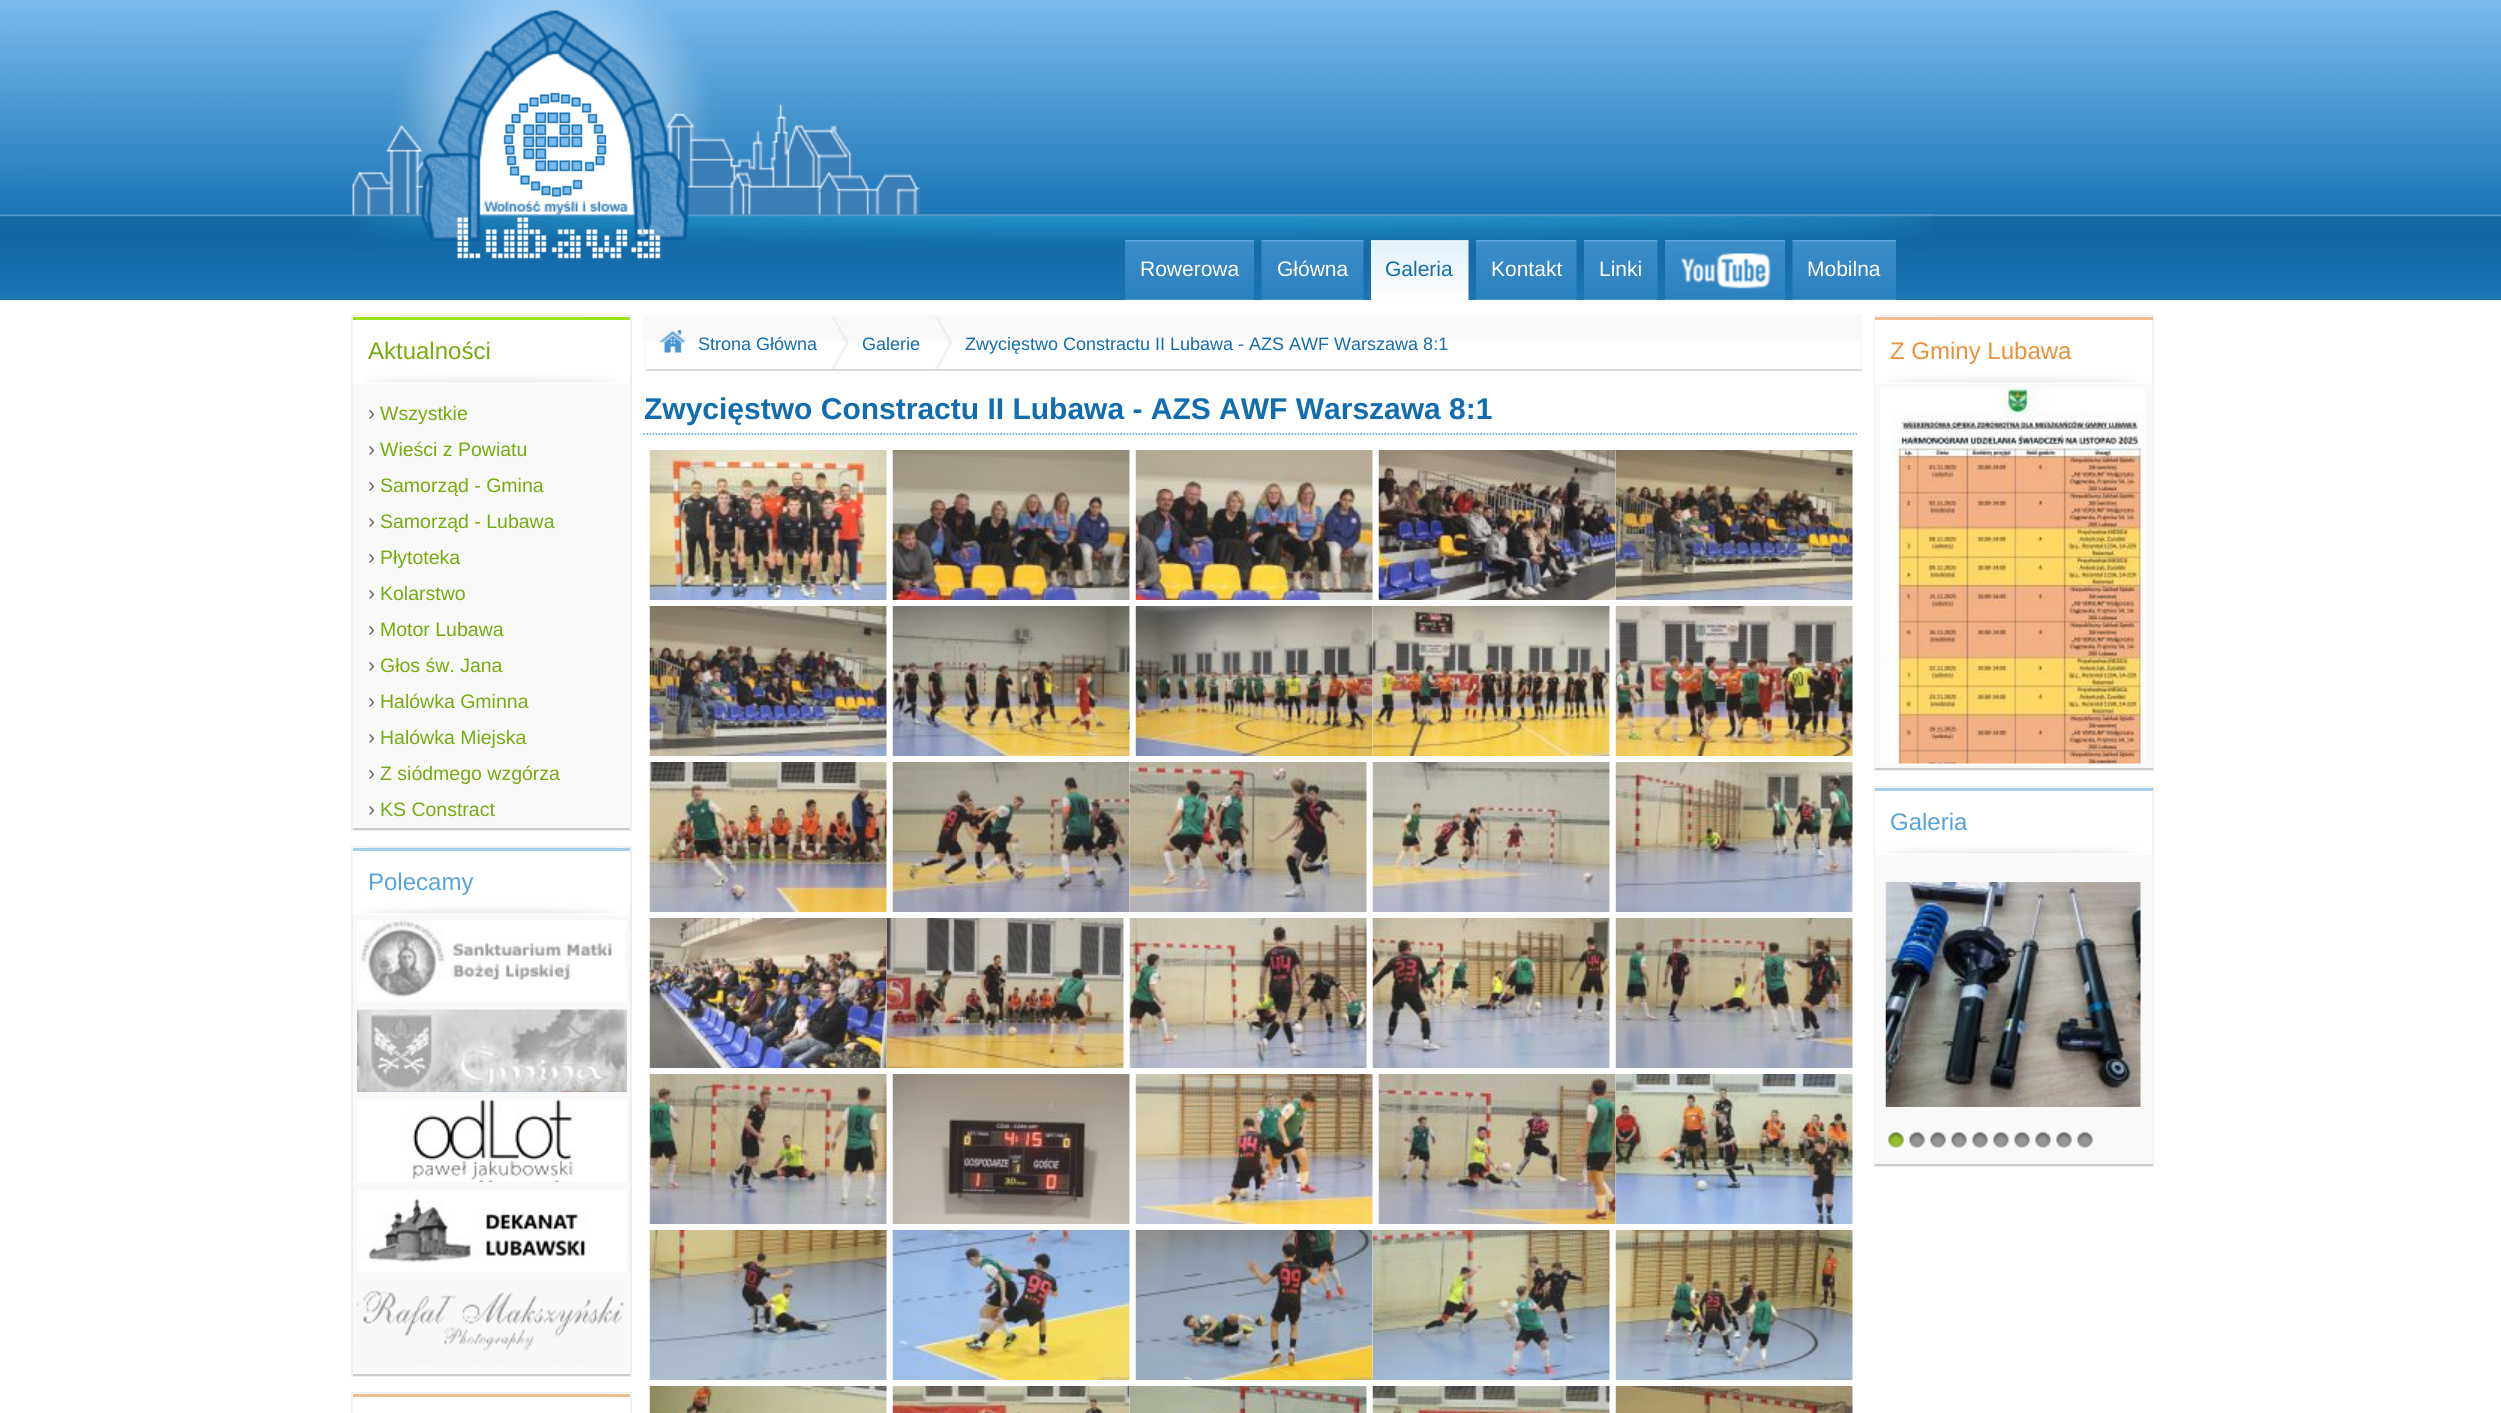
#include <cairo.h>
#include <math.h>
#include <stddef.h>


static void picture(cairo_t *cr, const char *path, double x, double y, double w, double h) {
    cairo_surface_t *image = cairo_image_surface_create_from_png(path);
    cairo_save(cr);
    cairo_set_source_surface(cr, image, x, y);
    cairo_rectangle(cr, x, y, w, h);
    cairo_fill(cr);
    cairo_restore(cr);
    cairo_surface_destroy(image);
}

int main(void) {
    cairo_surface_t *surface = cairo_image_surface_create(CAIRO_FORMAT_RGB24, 2501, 1413);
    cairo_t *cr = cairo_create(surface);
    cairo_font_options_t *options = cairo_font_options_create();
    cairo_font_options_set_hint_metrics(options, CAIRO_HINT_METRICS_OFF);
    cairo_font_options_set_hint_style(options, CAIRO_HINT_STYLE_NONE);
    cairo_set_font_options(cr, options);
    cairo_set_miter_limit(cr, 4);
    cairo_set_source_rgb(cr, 1, 1, 1);
    cairo_paint(cr);
    picture(cr, "img1.png", 0, 0, 2501, 300);
    picture(cr, "img2.png", 352, 214, 1582, 36);
    picture(cr, "img3.png", 352, 0, 568, 259);
    picture(cr, "img4.png", 1125, 240, 129, 60);
    cairo_select_font_face(cr, "Liberation Sans", CAIRO_FONT_SLANT_NORMAL, CAIRO_FONT_WEIGHT_NORMAL);
    cairo_set_font_size(cr, 21);
    cairo_set_source_rgb(cr, 1, 1, 1);
    cairo_move_to(cr, 1140, 276);
    cairo_show_text(cr, "Rowerowa");
    picture(cr, "img5.png", 1261, 240, 103, 60);
    cairo_move_to(cr, 1277, 276);
    cairo_show_text(cr, "Główna");
    picture(cr, "img6.png", 1371, 240, 98, 60);
    cairo_set_source_rgb(cr, 0.067, 0.427, 0.682);
    cairo_move_to(cr, 1385, 276);
    cairo_show_text(cr, "Galeria");
    picture(cr, "img7.png", 1476, 240, 101, 60);
    cairo_set_source_rgb(cr, 1, 1, 1);
    cairo_move_to(cr, 1491, 276);
    cairo_show_text(cr, "Kontakt");
    picture(cr, "img8.png", 1584, 240, 74, 60);
    cairo_move_to(cr, 1599, 276);
    cairo_show_text(cr, "Linki");
    picture(cr, "img9.png", 1665, 240, 120, 60);
    picture(cr, "img10.png", 1792, 240, 104, 60);
    cairo_move_to(cr, 1807, 276);
    cairo_show_text(cr, "Mobilna");
    cairo_rectangle(cr, 352, 316, 279, 514);
    cairo_set_source_rgb(cr, 0.937, 0.937, 0.937);
    cairo_stroke(cr);
    picture(cr, "img11.png", 352, 316, 278, 68);
    cairo_set_source_rgb(cr, 0.608, 0.886, 0.086);
    cairo_rectangle(cr, 353, 317, 277, 3);
    cairo_fill(cr);
    cairo_set_font_size(cr, 24);
    cairo_set_source_rgb(cr, 0.455, 0.675, 0.055);
    cairo_move_to(cr, 368, 359);
    cairo_show_text(cr, "Aktualności");
    cairo_set_source_rgb(cr, 0.976, 0.976, 0.976);
    cairo_rectangle(cr, 353, 384, 277, 444);
    cairo_fill(cr);
    cairo_set_source_rgb(cr, 0.792, 0.792, 0.792);
    cairo_rectangle(cr, 353, 828, 277, 2);
    cairo_fill(cr);
    cairo_set_font_size(cr, 21);
    cairo_set_source_rgb(cr, 0.4, 0.4, 0.4);
    cairo_move_to(cr, 368, 420);
    cairo_show_text(cr, "›");
    cairo_set_font_size(cr, 19.5);
    cairo_set_source_rgb(cr, 0.455, 0.675, 0.055);
    cairo_move_to(cr, 380, 420);
    cairo_show_text(cr, "Wszystkie");
    cairo_set_font_size(cr, 21);
    cairo_set_source_rgb(cr, 0.4, 0.4, 0.4);
    cairo_move_to(cr, 368, 456);
    cairo_show_text(cr, "›");
    cairo_set_font_size(cr, 19.5);
    cairo_set_source_rgb(cr, 0.455, 0.675, 0.055);
    cairo_move_to(cr, 380, 456);
    cairo_show_text(cr, "Wieści z Powiatu");
    cairo_set_font_size(cr, 21);
    cairo_set_source_rgb(cr, 0.4, 0.4, 0.4);
    cairo_move_to(cr, 368, 492);
    cairo_show_text(cr, "›");
    cairo_set_font_size(cr, 19.5);
    cairo_set_source_rgb(cr, 0.455, 0.675, 0.055);
    cairo_move_to(cr, 380, 492);
    cairo_show_text(cr, "Samorząd - Gmina");
    cairo_set_font_size(cr, 21);
    cairo_set_source_rgb(cr, 0.4, 0.4, 0.4);
    cairo_move_to(cr, 368, 528);
    cairo_show_text(cr, "›");
    cairo_set_font_size(cr, 19.5);
    cairo_set_source_rgb(cr, 0.455, 0.675, 0.055);
    cairo_move_to(cr, 380, 528);
    cairo_show_text(cr, "Samorząd - Lubawa");
    cairo_set_font_size(cr, 21);
    cairo_set_source_rgb(cr, 0.4, 0.4, 0.4);
    cairo_move_to(cr, 368, 564);
    cairo_show_text(cr, "›");
    cairo_set_font_size(cr, 19.5);
    cairo_set_source_rgb(cr, 0.455, 0.675, 0.055);
    cairo_move_to(cr, 380, 564);
    cairo_show_text(cr, "Płytoteka");
    cairo_set_font_size(cr, 21);
    cairo_set_source_rgb(cr, 0.4, 0.4, 0.4);
    cairo_move_to(cr, 368, 600);
    cairo_show_text(cr, "›");
    cairo_set_font_size(cr, 19.5);
    cairo_set_source_rgb(cr, 0.455, 0.675, 0.055);
    cairo_move_to(cr, 380, 600);
    cairo_show_text(cr, "Kolarstwo");
    cairo_set_font_size(cr, 21);
    cairo_set_source_rgb(cr, 0.4, 0.4, 0.4);
    cairo_move_to(cr, 368, 636);
    cairo_show_text(cr, "›");
    cairo_set_font_size(cr, 19.5);
    cairo_set_source_rgb(cr, 0.455, 0.675, 0.055);
    cairo_move_to(cr, 380, 636);
    cairo_show_text(cr, "Motor Lubawa");
    cairo_set_font_size(cr, 21);
    cairo_set_source_rgb(cr, 0.4, 0.4, 0.4);
    cairo_move_to(cr, 368, 672);
    cairo_show_text(cr, "›");
    cairo_set_font_size(cr, 19.5);
    cairo_set_source_rgb(cr, 0.455, 0.675, 0.055);
    cairo_move_to(cr, 380, 672);
    cairo_show_text(cr, "Głos św. Jana");
    cairo_set_font_size(cr, 21);
    cairo_set_source_rgb(cr, 0.4, 0.4, 0.4);
    cairo_move_to(cr, 368, 708);
    cairo_show_text(cr, "›");
    cairo_set_font_size(cr, 19.5);
    cairo_set_source_rgb(cr, 0.455, 0.675, 0.055);
    cairo_move_to(cr, 380, 708);
    cairo_show_text(cr, "Halówka Gminna");
    cairo_set_font_size(cr, 21);
    cairo_set_source_rgb(cr, 0.4, 0.4, 0.4);
    cairo_move_to(cr, 368, 744);
    cairo_show_text(cr, "›");
    cairo_set_font_size(cr, 19.5);
    cairo_set_source_rgb(cr, 0.455, 0.675, 0.055);
    cairo_move_to(cr, 380, 744);
    cairo_show_text(cr, "Halówka Miejska");
    cairo_set_font_size(cr, 21);
    cairo_set_source_rgb(cr, 0.4, 0.4, 0.4);
    cairo_move_to(cr, 368, 780);
    cairo_show_text(cr, "›");
    cairo_set_font_size(cr, 19.5);
    cairo_set_source_rgb(cr, 0.455, 0.675, 0.055);
    cairo_move_to(cr, 380, 780);
    cairo_show_text(cr, "Z siódmego wzgórza");
    cairo_set_font_size(cr, 21);
    cairo_set_source_rgb(cr, 0.4, 0.4, 0.4);
    cairo_move_to(cr, 368, 816);
    cairo_show_text(cr, "›");
    cairo_set_font_size(cr, 19.5);
    cairo_set_source_rgb(cr, 0.455, 0.675, 0.055);
    cairo_move_to(cr, 380, 816);
    cairo_show_text(cr, "KS Constract");
    cairo_rectangle(cr, 352, 847, 279, 529);
    cairo_set_source_rgb(cr, 0.937, 0.937, 0.937);
    cairo_stroke(cr);
    picture(cr, "img11.png", 352, 847, 278, 68);
    cairo_set_source_rgb(cr, 0.655, 0.808, 0.922);
    cairo_rectangle(cr, 353, 848, 277, 3);
    cairo_fill(cr);
    cairo_set_font_size(cr, 24);
    cairo_set_source_rgb(cr, 0.341, 0.635, 0.851);
    cairo_move_to(cr, 368, 890);
    cairo_show_text(cr, "Polecamy");
    cairo_set_source_rgb(cr, 0.976, 0.976, 0.976);
    cairo_rectangle(cr, 353, 915, 277, 459);
    cairo_fill(cr);
    cairo_set_source_rgb(cr, 0.792, 0.792, 0.792);
    cairo_rectangle(cr, 353, 1374, 277, 2);
    cairo_fill(cr);
    picture(cr, "img12.png", 357, 920, 270, 82);
    picture(cr, "img13.png", 357, 1009, 270, 83);
    picture(cr, "img14.png", 357, 1099, 270, 83);
    picture(cr, "img15.png", 357, 1190, 270, 82);
    picture(cr, "img16.png", 357, 1280, 270, 82);
    cairo_rectangle(cr, 352, 1393, 279, 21);
    cairo_set_source_rgb(cr, 0.937, 0.937, 0.937);
    cairo_stroke(cr);
    picture(cr, "img17.png", 352, 1393, 278, 20);
    cairo_set_source_rgb(cr, 0.945, 0.745, 0.545);
    cairo_rectangle(cr, 353, 1394, 277, 3);
    cairo_fill(cr);
    cairo_set_source_rgb(cr, 0.976, 0.976, 0.976);
    cairo_rectangle(cr, 643, 316, 1217, 25);
    cairo_fill(cr);
    cairo_set_source_rgb(cr, 0.969, 0.969, 0.969);
    cairo_rectangle(cr, 644, 315, 1218, 2);
    cairo_fill(cr);
    cairo_rectangle(cr, 1860, 315, 2, 56);
    cairo_fill(cr);
    cairo_set_source_rgb(cr, 0.851, 0.851, 0.851);
    cairo_rectangle(cr, 644, 369, 1218, 2);
    cairo_fill(cr);
    cairo_set_source_rgb(cr, 0.969, 0.969, 0.969);
    cairo_rectangle(cr, 644, 341, 2, 30);
    cairo_fill(cr);
    picture(cr, "img18.png", 659, 330, 27, 23);
    cairo_set_font_size(cr, 18);
    cairo_set_source_rgb(cr, 0.067, 0.427, 0.682);
    cairo_move_to(cr, 698, 350);
    cairo_show_text(cr, "Strona Główna");
    picture(cr, "img19.png", 832, 316, 17, 53);
    cairo_move_to(cr, 862, 350);
    cairo_show_text(cr, "Galerie");
    picture(cr, "img20.png", 935, 317, 18, 52);
    cairo_move_to(cr, 965, 350);
    cairo_show_text(cr, "Zwycięstwo Constractu II Lubawa - AZS AWF Warszawa 8:1");
    cairo_new_path(cr);
    cairo_move_to(cr, 643.5, 434);
    cairo_line_to(cr, 1858.5, 434);
    cairo_set_source_rgb(cr, 0.282, 0.612, 0.882);
    cairo_set_line_width(cr, 1.5);
    cairo_set_dash(cr, (double[]){1.5, 1.5}, 2, 0);
    cairo_stroke(cr);
    cairo_select_font_face(cr, "Liberation Sans", CAIRO_FONT_SLANT_NORMAL, CAIRO_FONT_WEIGHT_BOLD);
    cairo_set_font_size(cr, 30);
    cairo_set_source_rgb(cr, 0.067, 0.427, 0.682);
    cairo_move_to(cr, 644, 419);
    cairo_show_text(cr, "Zwycięstwo Constractu II Lubawa - AZS AWF Warszawa 8:1");
    picture(cr, "img21.png", 649, 450, 238, 150);
    picture(cr, "img22.png", 892, 450, 238, 150);
    picture(cr, "img23.png", 1135, 450, 238, 150);
    picture(cr, "img24.png", 1378, 450, 238, 150);
    picture(cr, "img25.png", 1615, 450, 238, 150);
    picture(cr, "img26.png", 649, 606, 238, 150);
    picture(cr, "img27.png", 892, 606, 238, 150);
    picture(cr, "img28.png", 1135, 606, 238, 150);
    picture(cr, "img29.png", 1372, 606, 238, 150);
    picture(cr, "img30.png", 1615, 606, 238, 150);
    picture(cr, "img31.png", 649, 762, 238, 150);
    picture(cr, "img32.png", 892, 762, 238, 150);
    picture(cr, "img33.png", 1129, 762, 238, 150);
    picture(cr, "img34.png", 1372, 762, 238, 150);
    picture(cr, "img35.png", 1615, 762, 238, 150);
    picture(cr, "img36.png", 649, 918, 238, 150);
    picture(cr, "img37.png", 886, 918, 238, 150);
    picture(cr, "img38.png", 1129, 918, 238, 150);
    picture(cr, "img39.png", 1372, 918, 238, 150);
    picture(cr, "img40.png", 1615, 918, 238, 150);
    picture(cr, "img41.png", 649, 1074, 238, 150);
    picture(cr, "img42.png", 892, 1074, 238, 150);
    picture(cr, "img43.png", 1135, 1074, 238, 150);
    picture(cr, "img44.png", 1378, 1074, 238, 150);
    picture(cr, "img45.png", 1615, 1074, 238, 150);
    picture(cr, "img46.png", 649, 1230, 238, 150);
    picture(cr, "img47.png", 892, 1230, 238, 150);
    picture(cr, "img48.png", 1135, 1230, 238, 150);
    picture(cr, "img49.png", 1372, 1230, 238, 150);
    picture(cr, "img50.png", 1615, 1230, 238, 150);
    picture(cr, "img51.png", 649, 1386, 238, 27);
    picture(cr, "img52.png", 892, 1386, 238, 27);
    picture(cr, "img53.png", 1129, 1386, 238, 27);
    picture(cr, "img54.png", 1372, 1386, 238, 27);
    picture(cr, "img55.png", 1615, 1386, 238, 27);
    cairo_rectangle(cr, 1875, 316, 278, 454);
    cairo_set_source_rgb(cr, 0.937, 0.937, 0.937);
    cairo_set_line_width(cr, 2);
    cairo_set_dash(cr, NULL, 0, 0);
    cairo_stroke(cr);
    picture(cr, "img56.png", 1875, 316, 278, 67);
    cairo_set_source_rgb(cr, 0.945, 0.745, 0.545);
    cairo_rectangle(cr, 1875, 317, 278, 3);
    cairo_fill(cr);
    cairo_set_source_rgb(cr, 1, 1, 1);
    cairo_rectangle(cr, 1875, 383, 278, 1);
    cairo_fill(cr);
    cairo_select_font_face(cr, "Liberation Sans", CAIRO_FONT_SLANT_NORMAL, CAIRO_FONT_WEIGHT_NORMAL);
    cairo_set_font_size(cr, 24);
    cairo_set_source_rgb(cr, 0.91, 0.573, 0.224);
    cairo_move_to(cr, 1890, 359);
    cairo_show_text(cr, "Z Gminy Lubawa");
    cairo_set_source_rgb(cr, 0.976, 0.976, 0.976);
    cairo_rectangle(cr, 1875, 384, 278, 384);
    cairo_fill(cr);
    cairo_set_source_rgb(cr, 0.792, 0.792, 0.792);
    cairo_rectangle(cr, 1875, 768, 278, 2);
    cairo_fill(cr);
    picture(cr, "img57.png", 1880, 388, 265, 376);
    cairo_rectangle(cr, 1875, 787, 278, 379);
    cairo_set_source_rgb(cr, 0.937, 0.937, 0.937);
    cairo_stroke(cr);
    picture(cr, "img56.png", 1875, 787, 278, 67);
    cairo_set_source_rgb(cr, 0.655, 0.808, 0.922);
    cairo_rectangle(cr, 1875, 788, 278, 3);
    cairo_fill(cr);
    cairo_set_source_rgb(cr, 1, 1, 1);
    cairo_rectangle(cr, 1875, 854, 278, 1);
    cairo_fill(cr);
    cairo_set_source_rgb(cr, 0.341, 0.635, 0.851);
    cairo_move_to(cr, 1890, 830);
    cairo_show_text(cr, "Galeria");
    cairo_set_source_rgb(cr, 0.976, 0.976, 0.976);
    cairo_rectangle(cr, 1875, 855, 278, 309);
    cairo_fill(cr);
    cairo_set_source_rgb(cr, 0.792, 0.792, 0.792);
    cairo_rectangle(cr, 1875, 1164, 278, 2);
    cairo_fill(cr);
    picture(cr, "img58.png", 1885, 882, 256, 225);
    picture(cr, "img59.png", 1888, 1132, 16, 17);
    picture(cr, "img60.png", 1909, 1132, 16, 17);
    picture(cr, "img60.png", 1930, 1132, 16, 17);
    picture(cr, "img60.png", 1951, 1132, 16, 17);
    picture(cr, "img60.png", 1972, 1132, 16, 17);
    picture(cr, "img60.png", 1993, 1132, 16, 17);
    picture(cr, "img60.png", 2014, 1132, 16, 17);
    picture(cr, "img61.png", 2035, 1132, 16, 17);
    picture(cr, "img62.png", 2056, 1132, 16, 17);
    picture(cr, "img61.png", 2077, 1132, 16, 17);
    cairo_surface_write_to_png(surface, "page.png");
    cairo_font_options_destroy(options);
    cairo_destroy(cr);
    cairo_surface_destroy(surface);
    return 0;
}
